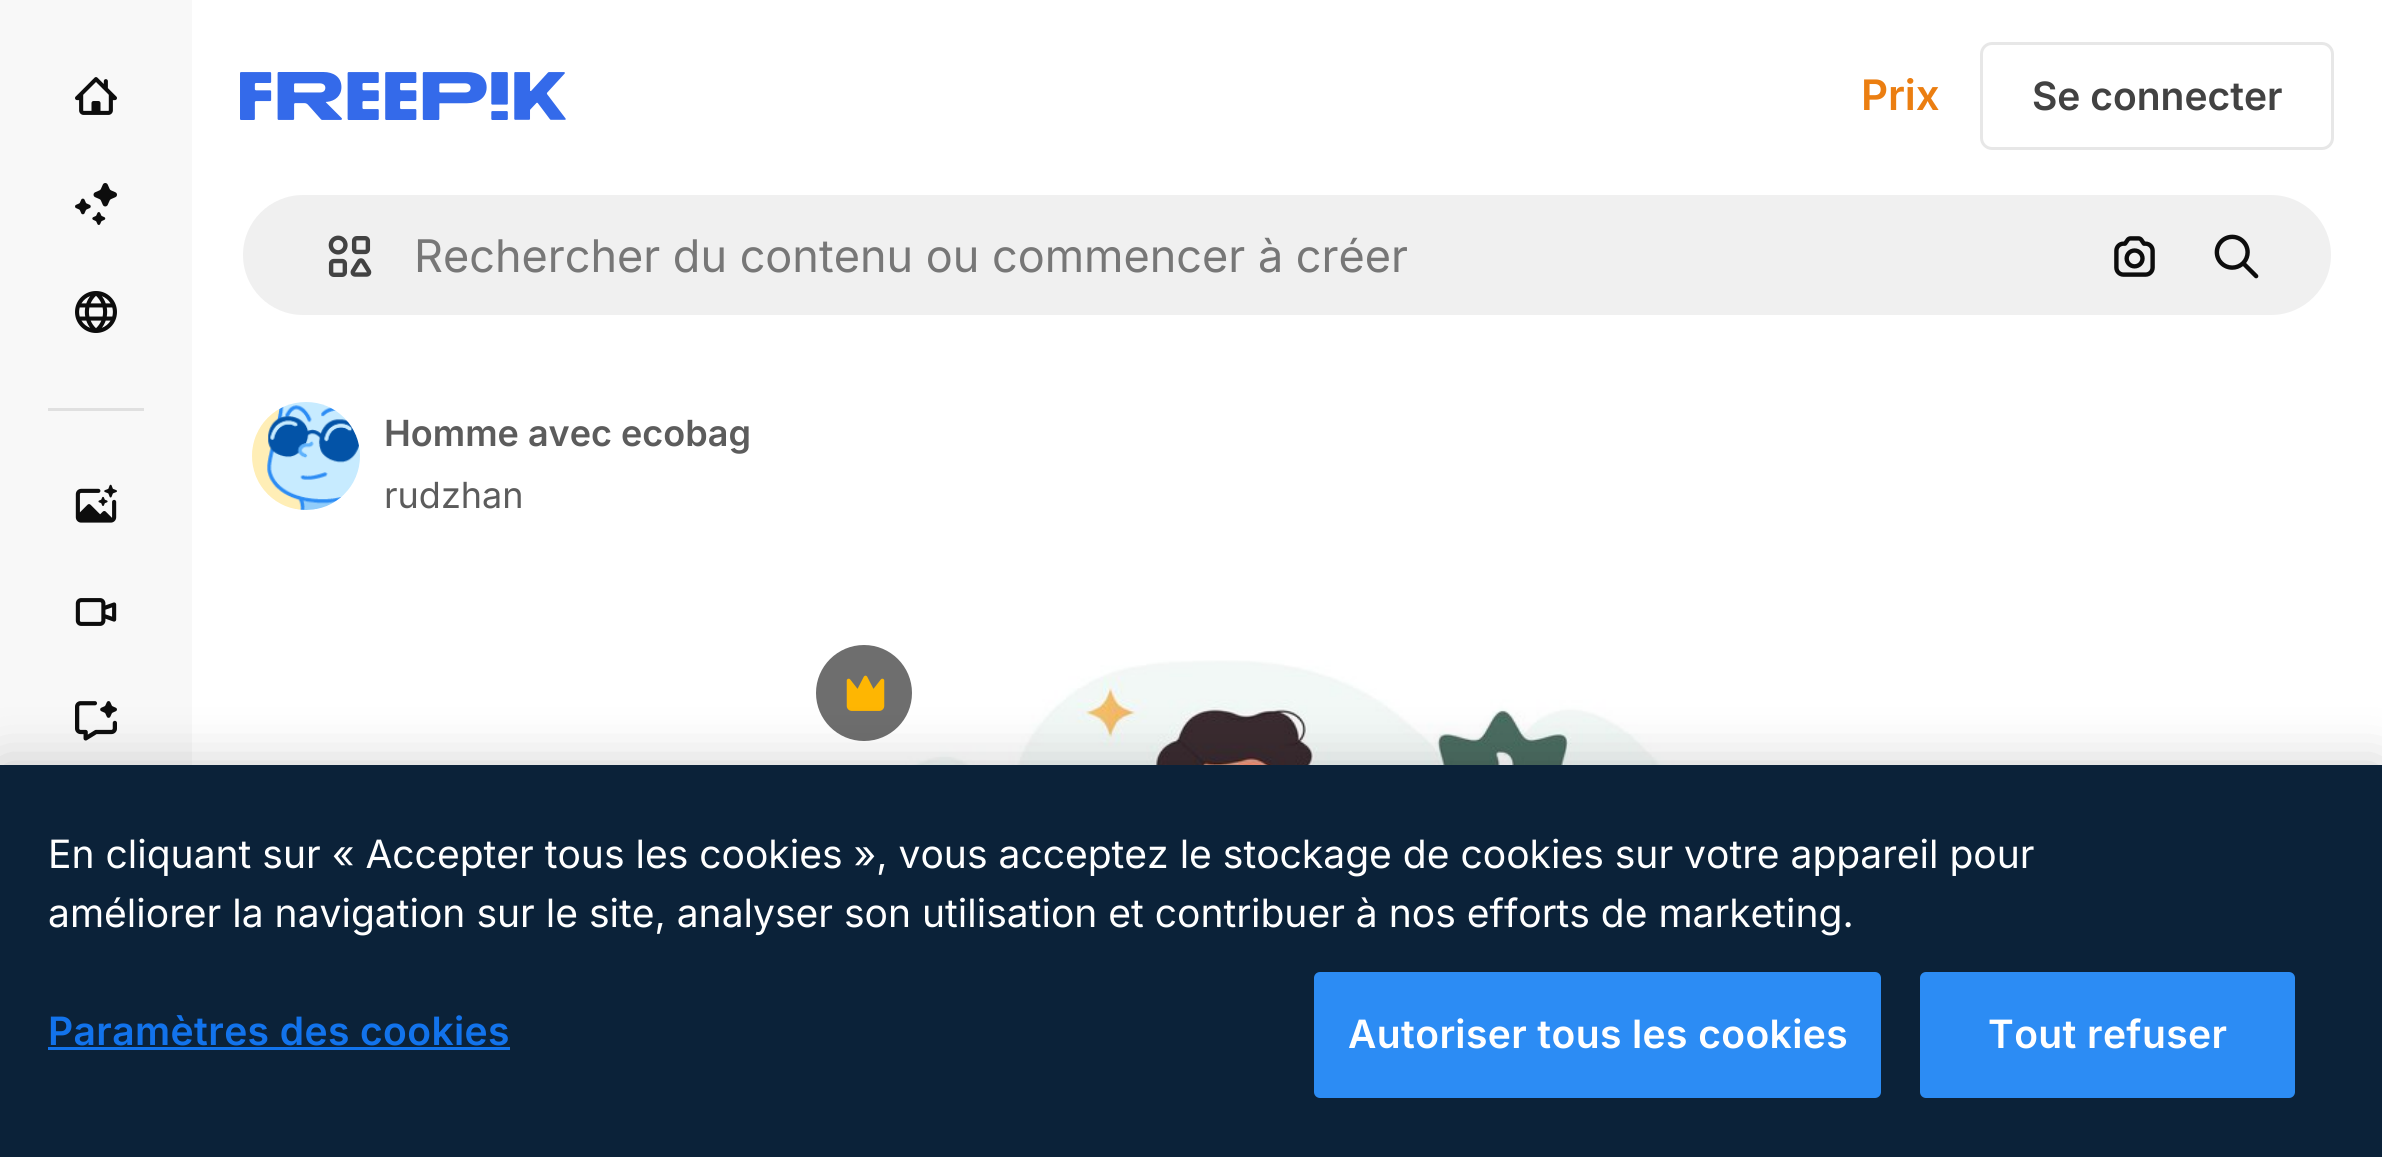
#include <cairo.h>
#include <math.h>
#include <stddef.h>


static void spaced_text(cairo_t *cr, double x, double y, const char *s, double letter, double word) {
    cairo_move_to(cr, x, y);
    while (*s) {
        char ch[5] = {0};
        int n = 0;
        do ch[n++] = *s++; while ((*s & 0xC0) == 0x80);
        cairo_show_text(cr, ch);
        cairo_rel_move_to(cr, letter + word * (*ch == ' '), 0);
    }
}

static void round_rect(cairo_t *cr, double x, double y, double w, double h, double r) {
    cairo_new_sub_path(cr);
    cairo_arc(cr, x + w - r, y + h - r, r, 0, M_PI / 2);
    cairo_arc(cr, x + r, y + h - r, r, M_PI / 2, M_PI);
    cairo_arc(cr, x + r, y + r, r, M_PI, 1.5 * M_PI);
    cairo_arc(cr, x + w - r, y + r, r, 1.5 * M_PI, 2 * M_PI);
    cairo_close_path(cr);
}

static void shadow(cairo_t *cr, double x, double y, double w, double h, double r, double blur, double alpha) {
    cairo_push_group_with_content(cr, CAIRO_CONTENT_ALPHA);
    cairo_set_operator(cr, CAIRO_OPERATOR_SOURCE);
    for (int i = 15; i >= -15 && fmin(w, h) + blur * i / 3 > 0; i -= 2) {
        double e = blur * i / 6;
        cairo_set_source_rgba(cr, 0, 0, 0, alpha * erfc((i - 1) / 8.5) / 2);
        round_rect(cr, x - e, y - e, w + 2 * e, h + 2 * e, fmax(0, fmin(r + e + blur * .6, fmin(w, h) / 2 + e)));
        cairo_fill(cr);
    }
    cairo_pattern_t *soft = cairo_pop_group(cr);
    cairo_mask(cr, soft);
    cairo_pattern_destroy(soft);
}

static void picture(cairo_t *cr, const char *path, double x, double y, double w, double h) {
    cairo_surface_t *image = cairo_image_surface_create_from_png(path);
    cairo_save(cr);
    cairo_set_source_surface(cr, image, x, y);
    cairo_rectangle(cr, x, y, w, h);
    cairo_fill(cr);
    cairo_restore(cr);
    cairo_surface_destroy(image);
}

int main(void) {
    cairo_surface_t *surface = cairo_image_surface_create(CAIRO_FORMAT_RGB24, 2382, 1157);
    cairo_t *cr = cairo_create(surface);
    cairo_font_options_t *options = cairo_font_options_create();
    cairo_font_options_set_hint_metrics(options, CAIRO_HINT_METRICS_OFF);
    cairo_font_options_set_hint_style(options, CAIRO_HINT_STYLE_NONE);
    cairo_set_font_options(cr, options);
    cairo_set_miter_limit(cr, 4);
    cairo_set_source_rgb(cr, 1, 1, 1);
    cairo_paint(cr);
    cairo_set_source_rgb(cr, 0.969, 0.969, 0.969);
    cairo_rectangle(cr, 0, 0, 192, 765);
    cairo_fill(cr);
    picture(cr, "img1.png", 75, 77, 42, 38);
    picture(cr, "img2.png", 75, 183, 42, 42);
    picture(cr, "img3.png", 75, 291, 42, 42);
    cairo_set_source_rgb(cr, 0.878, 0.878, 0.878);
    cairo_rectangle(cr, 48, 408, 96, 3);
    cairo_fill(cr);
    picture(cr, "img4.png", 75, 484, 42, 39);
    picture(cr, "img5.png", 75, 598, 42, 28);
    picture(cr, "img6.png", 75, 701, 42, 40);
    picture(cr, "img7.png", 240, 72, 326, 48);
    cairo_select_font_face(cr, "Inter SemiBold", CAIRO_FONT_SLANT_NORMAL, CAIRO_FONT_WEIGHT_NORMAL);
    cairo_set_font_size(cr, 42);
    cairo_set_source_rgb(cr, 0.918, 0.494, 0.067);
    cairo_move_to(cr, 1861, 110);
    cairo_show_text(cr, "Prix");
    round_rect(cr, 1981.5, 43.5, 351, 105, 10.5);
    cairo_set_source_rgb(cr, 0.906, 0.906, 0.906);
    cairo_set_line_width(cr, 3);
    cairo_stroke(cr);
    cairo_set_font_size(cr, 39);
    cairo_set_source_rgb(cr, 0.259, 0.259, 0.259);
    cairo_move_to(cr, 2032, 110);
    cairo_show_text(cr, "Se connecter");
    cairo_set_source_rgb(cr, 0.941, 0.941, 0.941);
    round_rect(cr, 241.5, 193.5, 2091, 123, 61.5);
    cairo_fill_preserve(cr);
    cairo_set_source_rgb(cr, 1, 1, 1);
    cairo_stroke(cr);
    picture(cr, "img8.png", 328, 235, 44, 42);
    cairo_select_font_face(cr, "Inter", CAIRO_FONT_SLANT_NORMAL, CAIRO_FONT_WEIGHT_NORMAL);
    cairo_set_font_size(cr, 45);
    cairo_set_source_rgb(cr, 0.467, 0.467, 0.467);
    cairo_move_to(cr, 414, 272);
    cairo_show_text(cr, "Rechercher du contenu ou commencer à créer");
    picture(cr, "img9.png", 2114, 236, 41, 41);
    picture(cr, "img10.png", 2214, 234, 45, 45);
    picture(cr, "img11.png", 252, 402, 108, 108);
    cairo_select_font_face(cr, "Inter SemiBold", CAIRO_FONT_SLANT_NORMAL, CAIRO_FONT_WEIGHT_NORMAL);
    cairo_set_font_size(cr, 36);
    cairo_set_source_rgb(cr, 0.361, 0.361, 0.361);
    cairo_move_to(cr, 384, 446);
    cairo_show_text(cr, "Homme avec ecobag");
    cairo_select_font_face(cr, "Inter", CAIRO_FONT_SLANT_NORMAL, CAIRO_FONT_WEIGHT_NORMAL);
    cairo_move_to(cr, 384, 508);
    cairo_show_text(cr, "rudzhan");
    picture(cr, "img13.png", 847, 660, 875, 105);
    cairo_set_source_rgb(cr, 0.431, 0.431, 0.431);
    cairo_arc(cr, 864, 693, 48, 0, 2 * M_PI);
    cairo_fill(cr);
    picture(cr, "img12.png", 846, 675, 39, 36);
    cairo_set_source_rgb(cr, 0, 0, 0);
    shadow(cr, 0, 765, 2382, 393, 0, 27, 0.2);
    cairo_set_source_rgb(cr, 0.043, 0.133, 0.224);
    cairo_rectangle(cr, 0, 765, 2382, 392);
    cairo_fill(cr);
    cairo_set_font_size(cr, 39.02);
    cairo_set_source_rgb(cr, 1, 1, 1);
    cairo_move_to(cr, 48, 868);
    cairo_show_text(cr, "En cliquant sur « Accepter tous les cookies », vous acceptez le stockage de cookies sur votre appareil pour");
    cairo_move_to(cr, 48, 927);
    cairo_show_text(cr, "améliorer la navigation sur le site, analyser son utilisation et contribuer à nos efforts de marketing.");
    cairo_select_font_face(cr, "Inter SemiBold", CAIRO_FONT_SLANT_NORMAL, CAIRO_FONT_WEIGHT_NORMAL);
    cairo_set_source_rgb(cr, 0.071, 0.451, 0.922);
    spaced_text(cr, 48, 1045, "Paramètres des cookies", 0.4, 0);
    cairo_rectangle(cr, 48, 1047, 462, 3);
    cairo_fill(cr);
    cairo_set_source_rgb(cr, 0.173, 0.549, 0.957);
    round_rect(cr, 1315.5, 973.5, 564, 123, 4.5);
    cairo_fill_preserve(cr);
    cairo_stroke(cr);
    cairo_set_source_rgb(cr, 1, 1, 1);
    spaced_text(cr, 1348, 1048, "Autoriser tous les cookies", 0.4, 0);
    cairo_set_source_rgb(cr, 0.173, 0.549, 0.957);
    round_rect(cr, 1921.5, 973.5, 372, 123, 4.5);
    cairo_fill_preserve(cr);
    cairo_stroke(cr);
    cairo_set_source_rgb(cr, 1, 1, 1);
    spaced_text(cr, 1988, 1048, "Tout refuser", 0.4, 0);
    cairo_surface_write_to_png(surface, "page.png");
    cairo_font_options_destroy(options);
    cairo_destroy(cr);
    cairo_surface_destroy(surface);
    return 0;
}
